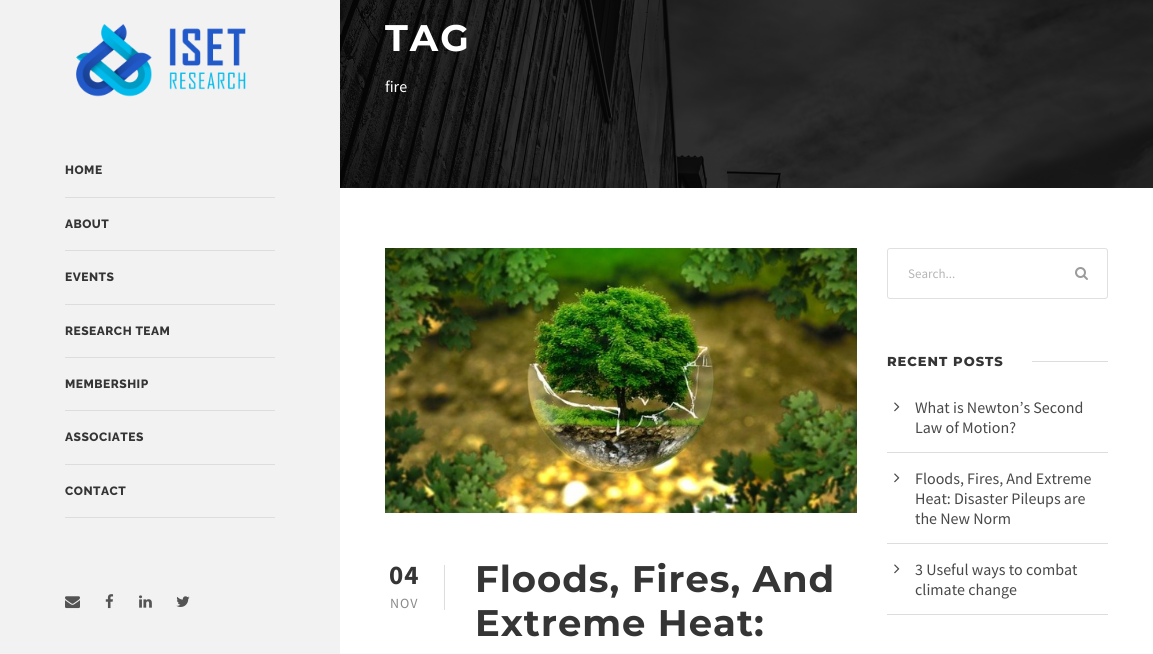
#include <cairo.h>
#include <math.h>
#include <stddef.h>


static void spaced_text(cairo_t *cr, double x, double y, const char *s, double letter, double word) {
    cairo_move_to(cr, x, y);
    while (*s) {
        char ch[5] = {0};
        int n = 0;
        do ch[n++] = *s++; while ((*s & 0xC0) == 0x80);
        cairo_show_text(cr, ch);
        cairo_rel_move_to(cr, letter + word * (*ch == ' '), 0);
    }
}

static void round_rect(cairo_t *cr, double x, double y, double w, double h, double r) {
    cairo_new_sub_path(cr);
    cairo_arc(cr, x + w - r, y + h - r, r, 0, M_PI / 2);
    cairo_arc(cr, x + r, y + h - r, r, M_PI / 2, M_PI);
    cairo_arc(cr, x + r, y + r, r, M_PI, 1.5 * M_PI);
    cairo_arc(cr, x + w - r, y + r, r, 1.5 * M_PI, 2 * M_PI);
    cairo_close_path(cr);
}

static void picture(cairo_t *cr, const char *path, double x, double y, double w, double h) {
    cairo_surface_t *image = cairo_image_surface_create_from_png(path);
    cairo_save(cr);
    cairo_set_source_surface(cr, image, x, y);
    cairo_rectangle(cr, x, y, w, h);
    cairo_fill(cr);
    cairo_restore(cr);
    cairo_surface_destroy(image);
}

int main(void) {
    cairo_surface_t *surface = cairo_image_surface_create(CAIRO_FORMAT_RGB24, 1153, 654);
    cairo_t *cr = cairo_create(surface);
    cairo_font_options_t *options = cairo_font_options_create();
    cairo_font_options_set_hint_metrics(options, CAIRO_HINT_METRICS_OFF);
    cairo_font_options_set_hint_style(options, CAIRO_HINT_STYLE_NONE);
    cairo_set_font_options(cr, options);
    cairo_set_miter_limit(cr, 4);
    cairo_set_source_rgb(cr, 1, 1, 1);
    cairo_paint(cr);
    cairo_set_source_rgb(cr, 0.949, 0.949, 0.949);
    cairo_rectangle(cr, 0, 0, 340, 654);
    cairo_fill(cr);
    picture(cr, "img1.png", 76, 24, 170, 73);
    cairo_set_source_rgb(cr, 0.867, 0.867, 0.867);
    cairo_rectangle(cr, 65, 197, 210, 1);
    cairo_fill(cr);
    cairo_select_font_face(cr, "Raleway ExtraBold", CAIRO_FONT_SLANT_NORMAL, CAIRO_FONT_WEIGHT_NORMAL);
    cairo_set_font_size(cr, 12);
    cairo_set_source_rgb(cr, 0.208, 0.208, 0.208);
    spaced_text(cr, 65, 174, "HOME", 0.5, 0);
    cairo_set_source_rgb(cr, 0.867, 0.867, 0.867);
    cairo_rectangle(cr, 65, 250, 210, 1);
    cairo_fill(cr);
    cairo_set_source_rgb(cr, 0.208, 0.208, 0.208);
    spaced_text(cr, 65, 228, "ABOUT", 0.5, 0);
    cairo_set_source_rgb(cr, 0.867, 0.867, 0.867);
    cairo_rectangle(cr, 65, 304, 210, 1);
    cairo_fill(cr);
    cairo_set_source_rgb(cr, 0.208, 0.208, 0.208);
    spaced_text(cr, 65, 281, "EVENTS", 0.5, 0);
    cairo_set_source_rgb(cr, 0.867, 0.867, 0.867);
    cairo_rectangle(cr, 65, 357, 210, 1);
    cairo_fill(cr);
    cairo_set_source_rgb(cr, 0.208, 0.208, 0.208);
    spaced_text(cr, 65, 335, "RESEARCH TEAM", 0.5, 0);
    cairo_set_source_rgb(cr, 0.867, 0.867, 0.867);
    cairo_rectangle(cr, 65, 410, 210, 1);
    cairo_fill(cr);
    cairo_set_source_rgb(cr, 0.208, 0.208, 0.208);
    spaced_text(cr, 65, 388, "MEMBERSHIP", 0.5, 0);
    cairo_set_source_rgb(cr, 0.867, 0.867, 0.867);
    cairo_rectangle(cr, 65, 464, 210, 1);
    cairo_fill(cr);
    cairo_set_source_rgb(cr, 0.208, 0.208, 0.208);
    spaced_text(cr, 65, 441, "ASSOCIATES", 0.5, 0);
    cairo_set_source_rgb(cr, 0.867, 0.867, 0.867);
    cairo_rectangle(cr, 65, 517, 210, 1);
    cairo_fill(cr);
    cairo_set_source_rgb(cr, 0.208, 0.208, 0.208);
    spaced_text(cr, 65, 495, "CONTACT", 0.5, 0);
    picture(cr, "img2.png", 65, 596, 15, 13);
    picture(cr, "img3.png", 105, 594, 9, 15);
    picture(cr, "img4.png", 139, 595, 13, 13);
    picture(cr, "img5.png", 176, 596, 14, 11);
    picture(cr, "img6.png", 340, 0, 813, 188);
    cairo_select_font_face(cr, "Montserrat", CAIRO_FONT_SLANT_NORMAL, CAIRO_FONT_WEIGHT_BOLD);
    cairo_set_font_size(cr, 37);
    cairo_set_source_rgb(cr, 1, 1, 1);
    spaced_text(cr, 385, 51, "TAG", 2, 0);
    cairo_select_font_face(cr, "Source Sans Pro", CAIRO_FONT_SLANT_NORMAL, CAIRO_FONT_WEIGHT_NORMAL);
    cairo_set_font_size(cr, 16);
    cairo_move_to(cr, 385, 92);
    cairo_show_text(cr, "fire");
    picture(cr, "img7.png", 385, 248, 472, 265);
    cairo_set_source_rgb(cr, 0.867, 0.867, 0.867);
    cairo_rectangle(cr, 444, 565, 1, 45);
    cairo_fill(cr);
    cairo_select_font_face(cr, "Source Sans Pro", CAIRO_FONT_SLANT_NORMAL, CAIRO_FONT_WEIGHT_BOLD);
    cairo_set_font_size(cr, 27);
    cairo_set_source_rgb(cr, 0.208, 0.208, 0.208);
    spaced_text(cr, 389, 584, "04", 1, 0);
    cairo_select_font_face(cr, "Source Sans Pro", CAIRO_FONT_SLANT_NORMAL, CAIRO_FONT_WEIGHT_NORMAL);
    cairo_set_font_size(cr, 14);
    cairo_set_source_rgb(cr, 0.541, 0.541, 0.541);
    spaced_text(cr, 390, 608, "NOV", 1, 0);
    cairo_select_font_face(cr, "Montserrat", CAIRO_FONT_SLANT_NORMAL, CAIRO_FONT_WEIGHT_BOLD);
    cairo_set_font_size(cr, 37);
    cairo_set_source_rgb(cr, 0.208, 0.208, 0.208);
    spaced_text(cr, 475, 592, "Floods, Fires, And", 1, 0);
    spaced_text(cr, 475, 636, "Extreme Heat:", 1, 0);
    round_rect(cr, 887.5, 248.5, 220, 50, 2.5);
    cairo_set_source_rgb(cr, 0.878, 0.878, 0.878);
    cairo_set_line_width(cr, 1);
    cairo_stroke(cr);
    cairo_select_font_face(cr, "Source Sans Pro", CAIRO_FONT_SLANT_NORMAL, CAIRO_FONT_WEIGHT_NORMAL);
    cairo_set_font_size(cr, 13);
    cairo_set_source_rgb(cr, 0.71, 0.71, 0.71);
    cairo_move_to(cr, 908, 278);
    cairo_show_text(cr, "Search...");
    picture(cr, "img8.png", 1075, 267, 13, 13);
    cairo_select_font_face(cr, "Montserrat ExtraBold", CAIRO_FONT_SLANT_NORMAL, CAIRO_FONT_WEIGHT_NORMAL);
    cairo_set_source_rgb(cr, 0.208, 0.208, 0.208);
    spaced_text(cr, 887, 366, "RECENT POSTS", 1, 0);
    cairo_set_source_rgb(cr, 0.867, 0.867, 0.867);
    cairo_rectangle(cr, 1032, 361, 76, 1);
    cairo_fill(cr);
    cairo_rectangle(cr, 887, 452, 221, 1);
    cairo_fill(cr);
    picture(cr, "img9.png", 894, 402, 6, 10);
    cairo_select_font_face(cr, "Source Sans Pro", CAIRO_FONT_SLANT_NORMAL, CAIRO_FONT_WEIGHT_NORMAL);
    cairo_set_font_size(cr, 16);
    cairo_set_source_rgb(cr, 0.282, 0.282, 0.282);
    cairo_move_to(cr, 915, 413);
    cairo_show_text(cr, "What is Newton’s Second");
    cairo_move_to(cr, 915, 433);
    cairo_show_text(cr, "Law of Motion?");
    cairo_set_source_rgb(cr, 0.867, 0.867, 0.867);
    cairo_rectangle(cr, 887, 543, 221, 1);
    cairo_fill(cr);
    picture(cr, "img9.png", 894, 473, 6, 10);
    cairo_set_source_rgb(cr, 0.282, 0.282, 0.282);
    cairo_move_to(cr, 915, 484);
    cairo_show_text(cr, "Floods, Fires, And Extreme");
    cairo_move_to(cr, 915, 504);
    cairo_show_text(cr, "Heat: Disaster Pileups are");
    cairo_move_to(cr, 915, 524);
    cairo_show_text(cr, "the New Norm");
    cairo_set_source_rgb(cr, 0.867, 0.867, 0.867);
    cairo_rectangle(cr, 887, 614, 221, 1);
    cairo_fill(cr);
    picture(cr, "img9.png", 894, 564, 6, 10);
    cairo_set_source_rgb(cr, 0.282, 0.282, 0.282);
    cairo_move_to(cr, 915, 575);
    cairo_show_text(cr, "3 Useful ways to combat");
    cairo_move_to(cr, 915, 595);
    cairo_show_text(cr, "climate change");
    cairo_surface_write_to_png(surface, "page.png");
    cairo_font_options_destroy(options);
    cairo_destroy(cr);
    cairo_surface_destroy(surface);
    return 0;
}
